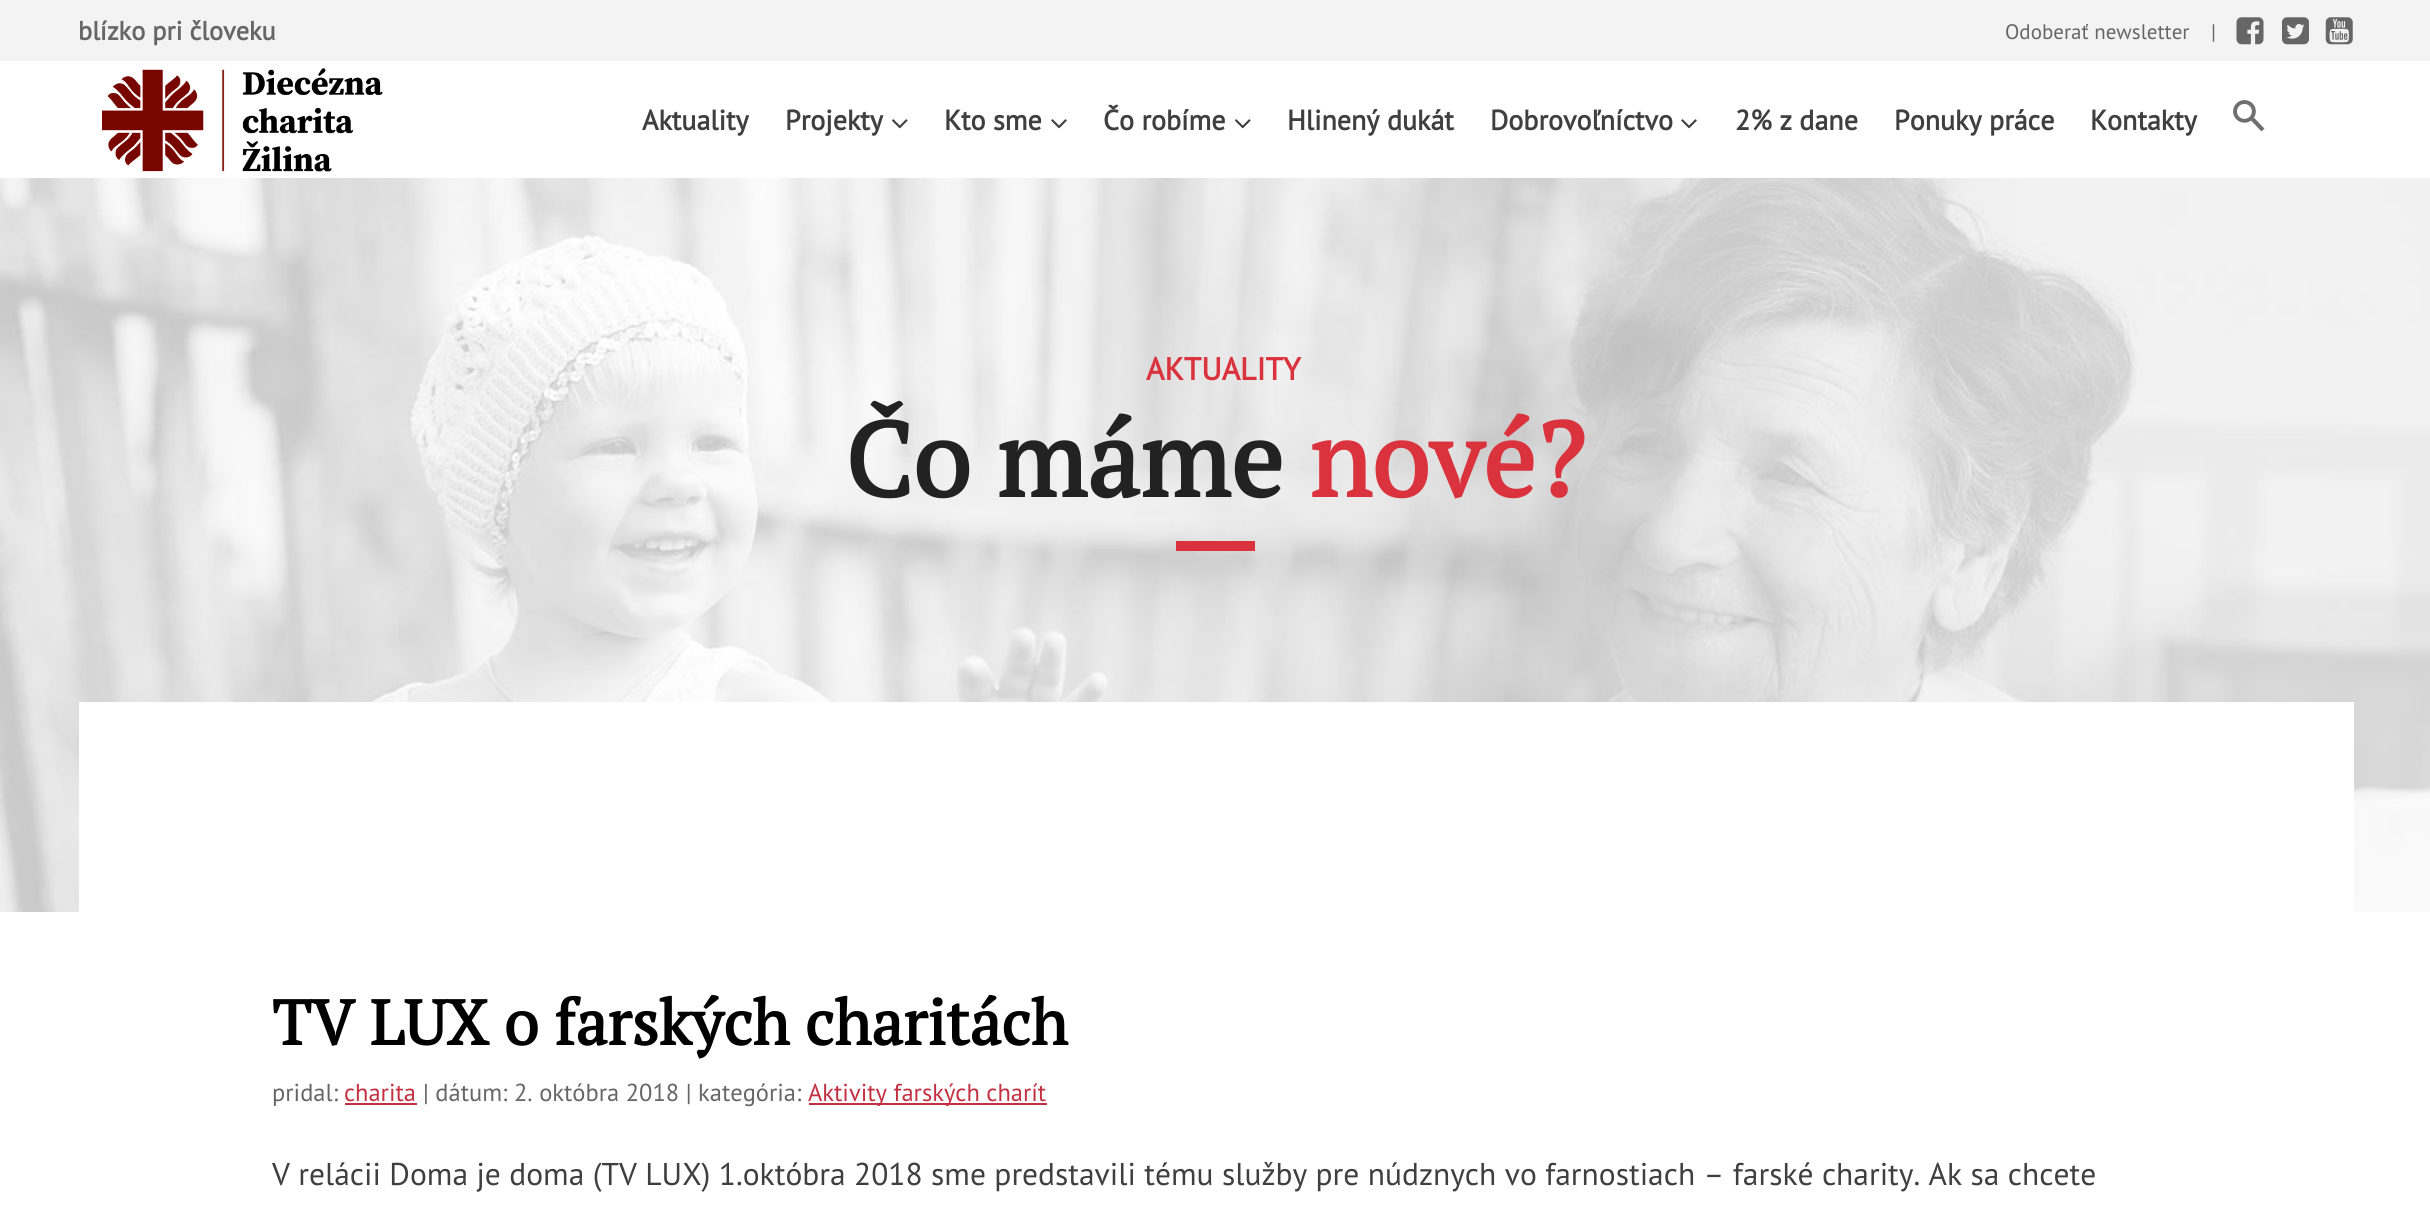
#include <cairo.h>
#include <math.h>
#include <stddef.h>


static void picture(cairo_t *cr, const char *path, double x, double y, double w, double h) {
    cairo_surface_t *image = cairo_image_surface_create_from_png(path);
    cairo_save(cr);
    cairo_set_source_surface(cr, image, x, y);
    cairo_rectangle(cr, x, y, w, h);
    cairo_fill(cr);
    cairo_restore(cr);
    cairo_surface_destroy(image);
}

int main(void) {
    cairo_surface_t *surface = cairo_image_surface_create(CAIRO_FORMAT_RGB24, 2430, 1205);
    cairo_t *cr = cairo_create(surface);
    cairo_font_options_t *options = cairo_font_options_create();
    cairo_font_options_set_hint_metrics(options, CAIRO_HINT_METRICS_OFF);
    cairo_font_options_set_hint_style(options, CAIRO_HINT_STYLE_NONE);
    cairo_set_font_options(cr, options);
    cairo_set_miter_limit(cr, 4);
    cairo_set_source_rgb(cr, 1, 1, 1);
    cairo_paint(cr);
    cairo_set_source_rgb(cr, 0.953, 0.953, 0.953);
    cairo_rectangle(cr, 0, 0, 2430, 61);
    cairo_fill(cr);
    cairo_select_font_face(cr, "PT Sans", CAIRO_FONT_SLANT_NORMAL, CAIRO_FONT_WEIGHT_BOLD);
    cairo_set_font_size(cr, 26.25);
    cairo_set_source_rgb(cr, 0.4, 0.4, 0.4);
    cairo_move_to(cr, 78, 40);
    cairo_show_text(cr, "blízko pri človeku");
    cairo_select_font_face(cr, "PT Sans", CAIRO_FONT_SLANT_NORMAL, CAIRO_FONT_WEIGHT_NORMAL);
    cairo_set_font_size(cr, 21);
    cairo_move_to(cr, 2005, 39);
    cairo_show_text(cr, "Odoberať newsletter");
    cairo_move_to(cr, 2211, 39);
    cairo_show_text(cr, "|");
    picture(cr, "img1.png", 2236, 17, 28, 28);
    picture(cr, "img2.png", 2282, 17, 27, 28);
    picture(cr, "img3.png", 2325, 17, 28, 28);
    picture(cr, "img4.png", 102, 68, 281, 104);
    cairo_select_font_face(cr, "PT Sans", CAIRO_FONT_SLANT_NORMAL, CAIRO_FONT_WEIGHT_BOLD);
    cairo_set_font_size(cr, 28);
    cairo_set_source_rgb(cr, 0.247, 0.247, 0.247);
    cairo_move_to(cr, 642, 130);
    cairo_show_text(cr, "Aktuality");
    cairo_move_to(cr, 785, 130);
    cairo_show_text(cr, "Projekty");
    picture(cr, "img5.png", 892, 119, 16, 10);
    cairo_move_to(cr, 944, 130);
    cairo_show_text(cr, "Kto sme");
    picture(cr, "img6.png", 1051, 119, 16, 10);
    cairo_move_to(cr, 1103, 130);
    cairo_show_text(cr, "Čo robíme");
    picture(cr, "img5.png", 1235, 119, 16, 10);
    cairo_move_to(cr, 1287, 130);
    cairo_show_text(cr, "Hlinený dukát");
    cairo_move_to(cr, 1490, 130);
    cairo_show_text(cr, "Dobrovoľníctvo");
    picture(cr, "img6.png", 1681, 119, 16, 10);
    cairo_move_to(cr, 1735, 130);
    cairo_show_text(cr, "2% z dane");
    cairo_move_to(cr, 1894, 130);
    cairo_show_text(cr, "Ponuky práce");
    cairo_move_to(cr, 2090, 130);
    cairo_show_text(cr, "Kontakty");
    picture(cr, "img7.png", 2233, 100, 32, 32);
    picture(cr, "img8.png", 0, 178, 2430, 734);
    cairo_set_font_size(cr, 31.5);
    cairo_set_source_rgb(cr, 0.855, 0.2, 0.239);
    cairo_move_to(cr, 1146, 380);
    cairo_show_text(cr, "AKTUALITY");
    cairo_select_font_face(cr, "PT Serif", CAIRO_FONT_SLANT_NORMAL, CAIRO_FONT_WEIGHT_BOLD);
    cairo_set_font_size(cr, 105);
    cairo_set_source_rgb(cr, 0.133, 0.133, 0.133);
    cairo_move_to(cr, 845, 497);
    cairo_show_text(cr, "Čo máme");
    cairo_set_source_rgb(cr, 0.855, 0.2, 0.239);
    cairo_move_to(cr, 1309, 497);
    cairo_show_text(cr, "nové?");
    cairo_rectangle(cr, 1176, 541, 79, 10);
    cairo_fill(cr);
    cairo_set_source_rgb(cr, 1, 1, 1);
    cairo_rectangle(cr, 79, 702, 2275, 210);
    cairo_fill(cr);
    cairo_set_font_size(cr, 63);
    cairo_set_source_rgb(cr, 0, 0, 0);
    cairo_move_to(cr, 272, 1045);
    cairo_show_text(cr, "TV LUX o farských charitách");
    cairo_select_font_face(cr, "PT Sans", CAIRO_FONT_SLANT_NORMAL, CAIRO_FONT_WEIGHT_NORMAL);
    cairo_set_font_size(cr, 24.5);
    cairo_set_source_rgb(cr, 0.4, 0.4, 0.4);
    cairo_move_to(cr, 272, 1101);
    cairo_show_text(cr, "pridal:");
    cairo_set_source_rgb(cr, 0.769, 0.184, 0.255);
    cairo_move_to(cr, 344, 1101);
    cairo_show_text(cr, "charita");
    cairo_rectangle(cr, 345, 1103, 72, 2);
    cairo_fill(cr);
    cairo_set_source_rgb(cr, 0.4, 0.4, 0.4);
    cairo_move_to(cr, 423, 1101);
    cairo_show_text(cr, "| dátum: 2. októbra 2018 | kategória:");
    cairo_set_source_rgb(cr, 0.769, 0.184, 0.255);
    cairo_rectangle(cr, 809, 1103, 238, 2);
    cairo_fill(cr);
    cairo_move_to(cr, 808, 1101);
    cairo_show_text(cr, "Aktivity farských charít");
    cairo_set_font_size(cr, 31.5);
    cairo_set_source_rgb(cr, 0.247, 0.247, 0.247);
    cairo_move_to(cr, 272, 1185);
    cairo_show_text(cr, "V relácii Doma je doma (TV LUX) 1.októbra 2018 sme predstavili tému služby pre núdznych vo farnostiach – farské charity. Ak sa chcete");
    cairo_surface_write_to_png(surface, "page.png");
    cairo_font_options_destroy(options);
    cairo_destroy(cr);
    cairo_surface_destroy(surface);
    return 0;
}
